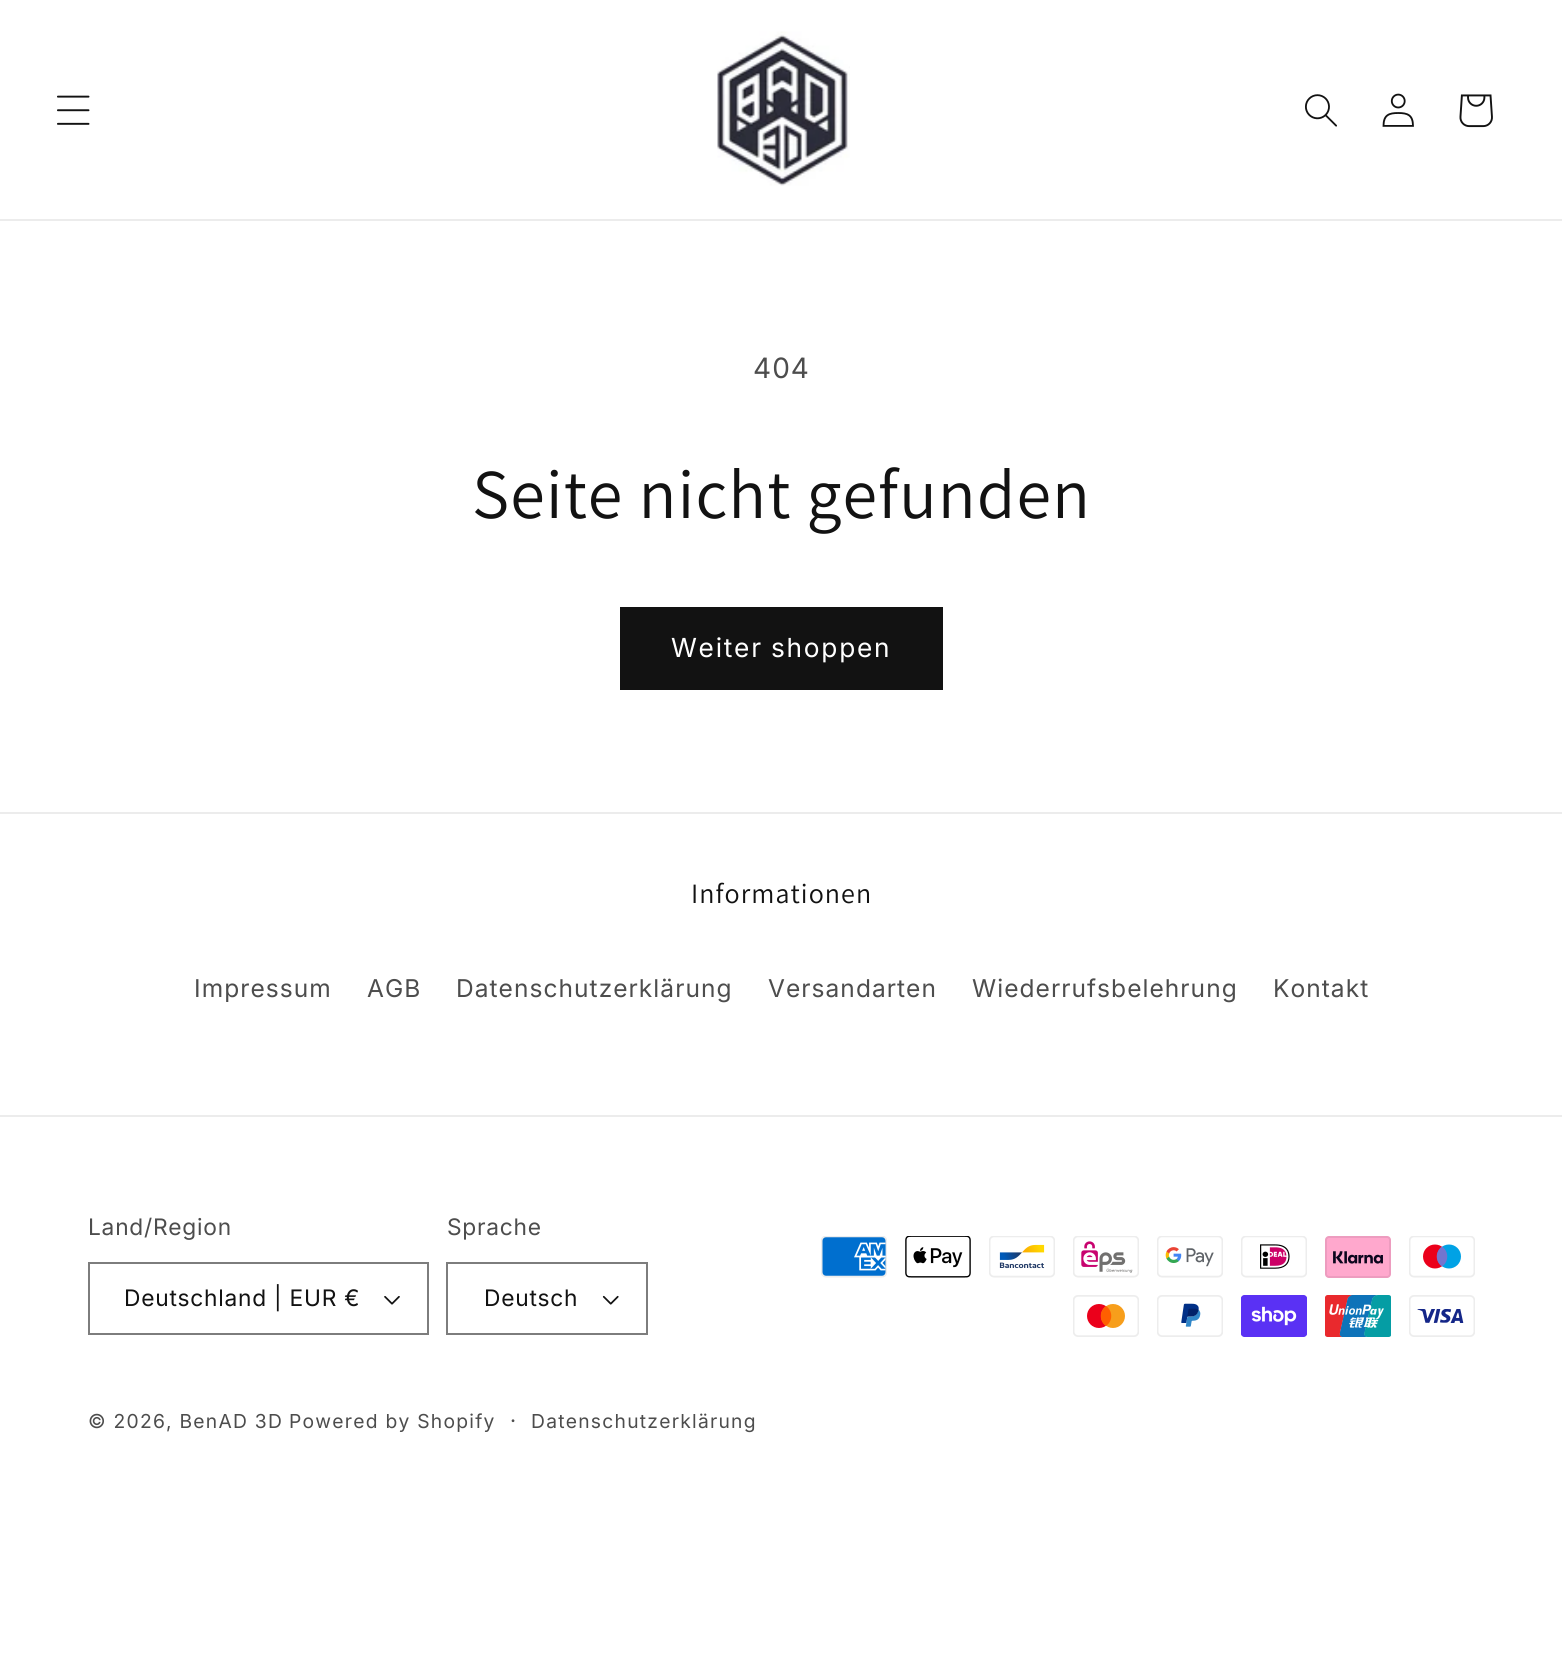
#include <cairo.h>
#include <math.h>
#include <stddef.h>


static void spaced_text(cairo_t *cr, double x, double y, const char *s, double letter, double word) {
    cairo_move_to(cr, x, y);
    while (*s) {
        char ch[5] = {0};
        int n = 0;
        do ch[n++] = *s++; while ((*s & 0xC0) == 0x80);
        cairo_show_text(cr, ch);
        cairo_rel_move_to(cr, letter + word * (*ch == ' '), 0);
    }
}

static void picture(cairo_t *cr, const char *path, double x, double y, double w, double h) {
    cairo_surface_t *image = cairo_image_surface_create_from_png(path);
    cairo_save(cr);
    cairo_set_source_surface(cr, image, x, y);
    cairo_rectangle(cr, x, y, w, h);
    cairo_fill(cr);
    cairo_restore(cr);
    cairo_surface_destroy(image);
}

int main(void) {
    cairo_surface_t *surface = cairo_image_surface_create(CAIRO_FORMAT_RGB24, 1562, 1677);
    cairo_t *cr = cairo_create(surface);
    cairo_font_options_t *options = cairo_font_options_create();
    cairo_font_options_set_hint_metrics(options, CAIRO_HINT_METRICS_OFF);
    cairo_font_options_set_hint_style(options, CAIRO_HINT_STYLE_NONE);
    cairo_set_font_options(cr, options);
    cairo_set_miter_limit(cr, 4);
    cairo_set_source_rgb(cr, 1, 1, 1);
    cairo_paint(cr);
    cairo_set_source_rgb(cr, 0.925, 0.925, 0.925);
    cairo_rectangle(cr, 0, 219, 1562, 2);
    cairo_fill(cr);
    picture(cr, "img1.png", 57, 95, 33, 30);
    picture(cr, "img2.png", 717, 31, 133, 155);
    picture(cr, "img3.png", 1305, 94, 32, 33);
    picture(cr, "img4.png", 1382, 93, 32, 34);
    picture(cr, "img5.png", 1459, 94, 34, 34);
    cairo_select_font_face(cr, "Inter", CAIRO_FONT_SLANT_NORMAL, CAIRO_FONT_WEIGHT_NORMAL);
    cairo_set_font_size(cr, 28);
    cairo_set_source_rgb(cr, 0.302, 0.302, 0.302);
    spaced_text(cr, 753, 378, "404", 1.05, 0);
    cairo_select_font_face(cr, "Assistant", CAIRO_FONT_SLANT_NORMAL, CAIRO_FONT_WEIGHT_NORMAL);
    cairo_set_font_size(cr, 70);
    cairo_set_source_rgb(cr, 0.071, 0.071, 0.071);
    spaced_text(cr, 472, 518, "Seite nicht gefunden", 1.05, 0);
    cairo_rectangle(cr, 620, 607, 323, 83);
    cairo_fill(cr);
    cairo_select_font_face(cr, "Inter", CAIRO_FONT_SLANT_NORMAL, CAIRO_FONT_WEIGHT_NORMAL);
    cairo_set_font_size(cr, 26.25);
    cairo_set_source_rgb(cr, 1, 1, 1);
    spaced_text(cr, 671, 657, "Weiter shoppen", 1.75, -1);
    cairo_set_source_rgb(cr, 0.925, 0.925, 0.925);
    cairo_rectangle(cr, 0, 812, 1562, 2);
    cairo_fill(cr);
    cairo_select_font_face(cr, "Assistant", CAIRO_FONT_SLANT_NORMAL, CAIRO_FONT_WEIGHT_NORMAL);
    cairo_set_font_size(cr, 28);
    cairo_set_source_rgb(cr, 0.071, 0.071, 0.071);
    spaced_text(cr, 691, 903, "Informationen", 1.05, 0);
    cairo_select_font_face(cr, "Inter", CAIRO_FONT_SLANT_NORMAL, CAIRO_FONT_WEIGHT_NORMAL);
    cairo_set_font_size(cr, 24.5);
    cairo_set_source_rgb(cr, 0.302, 0.302, 0.302);
    spaced_text(cr, 194, 997, "Impressum", 1.05, 0);
    spaced_text(cr, 367, 997, "AGB", 1.05, 0);
    spaced_text(cr, 456, 997, "Datenschutzerklärung", 1.05, 0);
    spaced_text(cr, 768, 997, "Versandarten", 1.05, 0);
    spaced_text(cr, 972, 997, "Wiederrufsbelehrung", 1.05, 0);
    spaced_text(cr, 1273, 997, "Kontakt", 1.05, 0);
    cairo_set_source_rgb(cr, 0.925, 0.925, 0.925);
    cairo_rectangle(cr, 0, 1115, 1562, 2);
    cairo_fill(cr);
    cairo_set_font_size(cr, 22.75);
    cairo_set_source_rgb(cr, 0.302, 0.302, 0.302);
    spaced_text(cr, 88, 1235, "Land/Region", 0.75, 0);
    picture(cr, "img6.png", 384, 1296, 16, 9);
    cairo_rectangle(cr, 89, 1263, 339, 71);
    cairo_set_source_rgb(cr, 0.49, 0.49, 0.49);
    cairo_stroke(cr);
    cairo_set_source_rgb(cr, 0.071, 0.071, 0.071);
    spaced_text(cr, 124, 1306, "Deutschland | EUR €", 0.75, 0);
    cairo_set_source_rgb(cr, 0.302, 0.302, 0.302);
    spaced_text(cr, 447, 1235, "Sprache", 0.75, 0);
    picture(cr, "img7.png", 602, 1295, 17, 10);
    cairo_rectangle(cr, 447, 1263, 200, 71);
    cairo_set_source_rgb(cr, 0.49, 0.49, 0.49);
    cairo_stroke(cr);
    cairo_set_source_rgb(cr, 0.071, 0.071, 0.071);
    spaced_text(cr, 484, 1306, "Deutsch", 0.75, 0);
    picture(cr, "img8.png", 821, 1236, 66, 42);
    picture(cr, "img9.png", 905, 1236, 66, 42);
    picture(cr, "img10.png", 989, 1236, 66, 42);
    picture(cr, "img11.png", 1073, 1236, 66, 42);
    picture(cr, "img12.png", 1157, 1236, 66, 42);
    picture(cr, "img13.png", 1241, 1236, 66, 42);
    picture(cr, "img14.png", 1325, 1236, 66, 42);
    picture(cr, "img15.png", 1409, 1236, 66, 42);
    picture(cr, "img16.png", 1073, 1295, 66, 42);
    picture(cr, "img17.png", 1157, 1295, 66, 42);
    picture(cr, "img18.png", 1241, 1295, 66, 42);
    picture(cr, "img19.png", 1325, 1295, 66, 42);
    picture(cr, "img20.png", 1409, 1295, 66, 42);
    cairo_set_font_size(cr, 19.25);
    cairo_set_source_rgb(cr, 0.302, 0.302, 0.302);
    spaced_text(cr, 88, 1428, "© 2026, BenAD 3D", 1.25, 0);
    spaced_text(cr, 289, 1428, "Powered by Shopify", 1.25, 0);
    cairo_set_font_size(cr, 21);
    spaced_text(cr, 510, 1428, "·", 1.25, 0);
    cairo_set_font_size(cr, 19.25);
    spaced_text(cr, 531, 1428, "Datenschutzerklärung", 1.25, 0);
    cairo_surface_write_to_png(surface, "page.png");
    cairo_font_options_destroy(options);
    cairo_destroy(cr);
    cairo_surface_destroy(surface);
    return 0;
}
